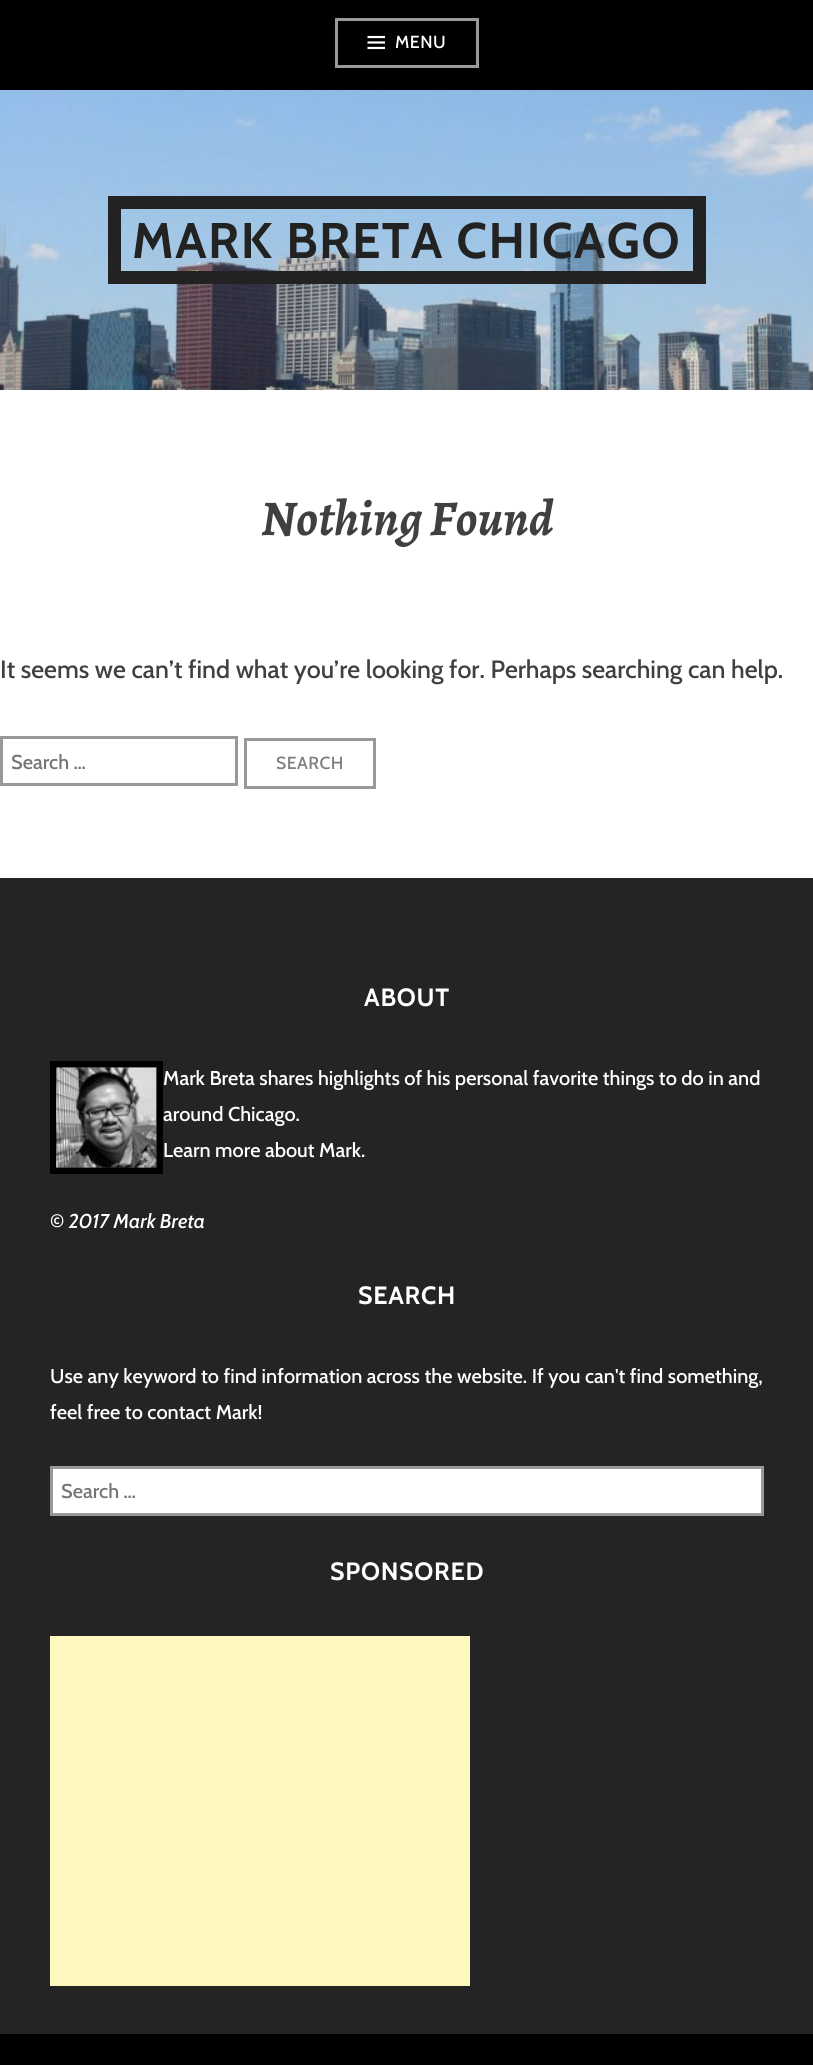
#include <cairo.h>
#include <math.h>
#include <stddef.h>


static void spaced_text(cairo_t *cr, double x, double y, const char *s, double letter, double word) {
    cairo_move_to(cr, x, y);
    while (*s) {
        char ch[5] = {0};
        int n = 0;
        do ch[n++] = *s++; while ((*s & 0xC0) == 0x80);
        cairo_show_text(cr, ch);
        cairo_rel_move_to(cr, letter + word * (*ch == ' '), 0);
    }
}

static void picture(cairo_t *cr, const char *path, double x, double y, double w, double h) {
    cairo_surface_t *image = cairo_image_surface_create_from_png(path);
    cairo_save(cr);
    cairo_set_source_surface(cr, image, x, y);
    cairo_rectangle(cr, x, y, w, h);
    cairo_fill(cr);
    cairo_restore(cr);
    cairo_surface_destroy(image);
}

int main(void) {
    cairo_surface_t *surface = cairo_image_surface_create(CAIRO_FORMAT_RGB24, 813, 2065);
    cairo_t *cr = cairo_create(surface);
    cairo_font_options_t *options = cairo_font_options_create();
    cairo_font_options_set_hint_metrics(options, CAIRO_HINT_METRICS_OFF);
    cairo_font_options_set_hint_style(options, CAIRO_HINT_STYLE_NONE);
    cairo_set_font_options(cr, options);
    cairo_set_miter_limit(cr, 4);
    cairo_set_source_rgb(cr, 1, 1, 1);
    cairo_paint(cr);
    cairo_set_source_rgb(cr, 0, 0, 0);
    cairo_rectangle(cr, 0, 0, 813, 90);
    cairo_fill(cr);
    cairo_rectangle(cr, 336.5, 19.5, 141, 47);
    cairo_set_source_rgb(cr, 0.6, 0.6, 0.6);
    cairo_set_line_width(cr, 3);
    cairo_stroke(cr);
    picture(cr, "img1.png", 367, 35, 18, 15);
    cairo_select_font_face(cr, "Cabin Medium", CAIRO_FONT_SLANT_NORMAL, CAIRO_FONT_WEIGHT_NORMAL);
    cairo_set_font_size(cr, 17.5);
    cairo_set_source_rgb(cr, 1, 1, 1);
    spaced_text(cr, 395, 48, "MENU", 0.5, 0);
    picture(cr, "img2.png", 0, 90, 813, 300);
    cairo_rectangle(cr, 114.5, 202.5, 585, 75);
    cairo_set_source_rgb(cr, 0.133, 0.133, 0.133);
    cairo_set_line_width(cr, 13);
    cairo_stroke(cr);
    cairo_select_font_face(cr, "Cabin", CAIRO_FONT_SLANT_NORMAL, CAIRO_FONT_WEIGHT_BOLD);
    cairo_set_font_size(cr, 50);
    spaced_text(cr, 132, 258, "MARK BRETA CHICAGO", 1.5, 0);
    cairo_select_font_face(cr, "Alegreya", CAIRO_FONT_SLANT_ITALIC, CAIRO_FONT_WEIGHT_BOLD);
    cairo_set_source_rgb(cr, 0.251, 0.251, 0.251);
    cairo_move_to(cr, 261, 535);
    cairo_show_text(cr, "Nothing Found");
    cairo_select_font_face(cr, "Cabin Medium", CAIRO_FONT_SLANT_NORMAL, CAIRO_FONT_WEIGHT_NORMAL);
    cairo_set_font_size(cr, 25);
    cairo_move_to(cr, 0, 678);
    cairo_show_text(cr, "It seems we can’t find what you’re looking for. Perhaps searching can help.");
    cairo_rectangle(cr, 1.5, 737.5, 235, 47);
    cairo_set_source_rgb(cr, 0.6, 0.6, 0.6);
    cairo_set_line_width(cr, 3);
    cairo_stroke(cr);
    cairo_set_font_size(cr, 20);
    cairo_set_source_rgb(cr, 0.459, 0.459, 0.459);
    cairo_move_to(cr, 11, 769);
    cairo_show_text(cr, "Search …");
    cairo_rectangle(cr, 245.5, 739.5, 129, 48);
    cairo_set_source_rgb(cr, 0.6, 0.6, 0.6);
    cairo_stroke(cr);
    cairo_set_font_size(cr, 17.5);
    cairo_set_source_rgb(cr, 0.502, 0.502, 0.502);
    spaced_text(cr, 276, 769, "SEARCH", 0.5, 0);
    cairo_set_source_rgb(cr, 0.141, 0.141, 0.141);
    cairo_rectangle(cr, 0, 878, 813, 1156);
    cairo_fill(cr);
    cairo_select_font_face(cr, "Cabin", CAIRO_FONT_SLANT_NORMAL, CAIRO_FONT_WEIGHT_BOLD);
    cairo_set_font_size(cr, 25);
    cairo_set_source_rgb(cr, 1, 1, 1);
    spaced_text(cr, 364, 1006, "ABOUT", 0.75, 0);
    cairo_rectangle(cr, 53, 1064, 107, 107);
    cairo_set_source_rgb(cr, 0, 0, 0);
    cairo_set_line_width(cr, 6);
    cairo_stroke(cr);
    picture(cr, "img3.png", 56, 1067, 101, 101);
    cairo_select_font_face(cr, "Cabin Medium", CAIRO_FONT_SLANT_NORMAL, CAIRO_FONT_WEIGHT_NORMAL);
    cairo_set_font_size(cr, 20);
    cairo_set_source_rgb(cr, 1, 1, 1);
    cairo_move_to(cr, 163, 1085);
    cairo_show_text(cr, "Mark Breta shares highlights of his personal favorite things to do in and");
    cairo_move_to(cr, 163, 1121);
    cairo_show_text(cr, "around Chicago.");
    cairo_move_to(cr, 163, 1157);
    cairo_show_text(cr, "Learn more about Mark.");
    cairo_move_to(cr, 50, 1228);
    cairo_show_text(cr, "©");
    cairo_select_font_face(cr, "Cabin Medium", CAIRO_FONT_SLANT_ITALIC, CAIRO_FONT_WEIGHT_NORMAL);
    cairo_move_to(cr, 69, 1228);
    cairo_show_text(cr, "2017 Mark Breta");
    cairo_select_font_face(cr, "Cabin", CAIRO_FONT_SLANT_NORMAL, CAIRO_FONT_WEIGHT_BOLD);
    cairo_set_font_size(cr, 25);
    spaced_text(cr, 358, 1304, "SEARCH", 0.75, 0);
    cairo_select_font_face(cr, "Cabin Medium", CAIRO_FONT_SLANT_NORMAL, CAIRO_FONT_WEIGHT_NORMAL);
    cairo_set_font_size(cr, 20);
    cairo_move_to(cr, 50, 1383);
    cairo_show_text(cr, "Use any keyword to find information across the website. If you can't find something,");
    cairo_move_to(cr, 50, 1419);
    cairo_show_text(cr, "feel free to contact Mark!");
    cairo_rectangle(cr, 51.5, 1467.5, 711, 47);
    cairo_fill_preserve(cr);
    cairo_set_source_rgb(cr, 0.6, 0.6, 0.6);
    cairo_set_line_width(cr, 3);
    cairo_stroke(cr);
    cairo_set_source_rgb(cr, 0.459, 0.459, 0.459);
    cairo_move_to(cr, 61, 1498);
    cairo_show_text(cr, "Search …");
    cairo_select_font_face(cr, "Cabin", CAIRO_FONT_SLANT_NORMAL, CAIRO_FONT_WEIGHT_BOLD);
    cairo_set_font_size(cr, 25);
    cairo_set_source_rgb(cr, 1, 1, 1);
    spaced_text(cr, 330, 1580, "SPONSORED", 0.75, 0);
    cairo_set_source_rgb(cr, 1, 0.976, 0.753);
    cairo_rectangle(cr, 50, 1636, 420, 350);
    cairo_fill(cr);
    cairo_set_source_rgb(cr, 0, 0, 0);
    cairo_rectangle(cr, 0, 2034, 813, 31);
    cairo_fill(cr);
    cairo_surface_write_to_png(surface, "page.png");
    cairo_font_options_destroy(options);
    cairo_destroy(cr);
    cairo_surface_destroy(surface);
    return 0;
}
